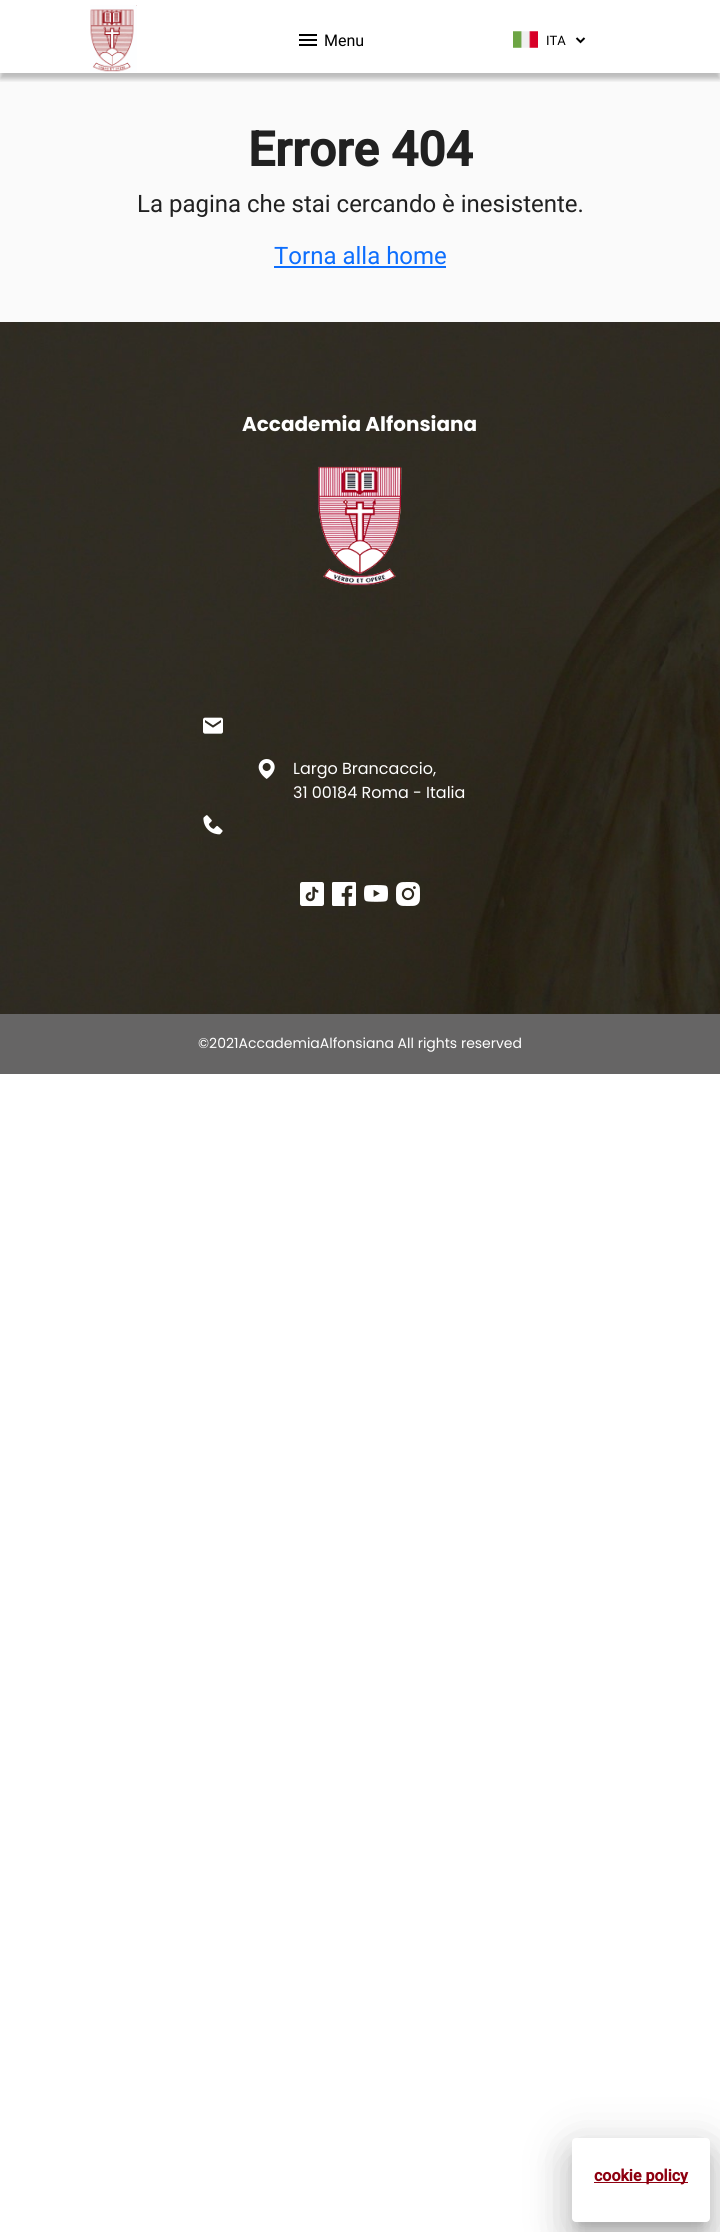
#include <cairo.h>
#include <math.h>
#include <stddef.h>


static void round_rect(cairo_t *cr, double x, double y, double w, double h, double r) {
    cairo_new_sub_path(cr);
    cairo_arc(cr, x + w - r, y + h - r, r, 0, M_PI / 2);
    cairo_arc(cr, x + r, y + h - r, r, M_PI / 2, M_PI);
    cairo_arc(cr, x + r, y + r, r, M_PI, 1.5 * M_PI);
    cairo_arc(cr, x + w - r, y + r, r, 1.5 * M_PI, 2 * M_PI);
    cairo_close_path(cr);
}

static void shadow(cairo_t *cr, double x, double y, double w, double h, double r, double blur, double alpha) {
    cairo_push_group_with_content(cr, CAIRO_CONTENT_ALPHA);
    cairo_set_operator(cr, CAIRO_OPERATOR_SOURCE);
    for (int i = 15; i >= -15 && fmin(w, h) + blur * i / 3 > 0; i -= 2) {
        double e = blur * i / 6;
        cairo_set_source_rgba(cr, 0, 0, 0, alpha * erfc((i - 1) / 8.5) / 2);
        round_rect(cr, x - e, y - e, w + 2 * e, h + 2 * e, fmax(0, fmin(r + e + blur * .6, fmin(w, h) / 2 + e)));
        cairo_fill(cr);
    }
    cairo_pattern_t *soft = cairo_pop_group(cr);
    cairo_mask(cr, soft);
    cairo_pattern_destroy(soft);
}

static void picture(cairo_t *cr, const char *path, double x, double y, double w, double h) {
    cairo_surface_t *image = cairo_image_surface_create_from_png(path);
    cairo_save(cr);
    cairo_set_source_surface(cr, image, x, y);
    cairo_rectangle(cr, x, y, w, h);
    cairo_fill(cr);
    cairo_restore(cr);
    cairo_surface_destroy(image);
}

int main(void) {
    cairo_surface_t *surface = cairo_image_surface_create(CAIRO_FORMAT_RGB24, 720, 2232);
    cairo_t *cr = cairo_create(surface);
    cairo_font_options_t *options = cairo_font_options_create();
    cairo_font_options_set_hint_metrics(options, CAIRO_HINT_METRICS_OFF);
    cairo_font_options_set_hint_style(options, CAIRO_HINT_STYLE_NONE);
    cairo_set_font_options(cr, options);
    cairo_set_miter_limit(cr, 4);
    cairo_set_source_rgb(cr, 1, 1, 1);
    cairo_paint(cr);
    cairo_set_source_rgb(cr, 0.98, 0.98, 0.98);
    cairo_rectangle(cr, 0, 73, 720, 249);
    cairo_fill(cr);
    cairo_save(cr);
    cairo_rectangle(cr, 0, 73, 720, 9);
    cairo_clip(cr);
    cairo_set_source_rgb(cr, 0, 0, 0);
    shadow(cr, 0, 6, 720, 73, 0, 2.5, 0.25);
    cairo_restore(cr);
    picture(cr, "img1.png", 90, 5, 47, 67);
    picture(cr, "img2.png", 299, 34, 18, 12);
    cairo_select_font_face(cr, "Roboto", CAIRO_FONT_SLANT_NORMAL, CAIRO_FONT_WEIGHT_NORMAL);
    cairo_set_font_size(cr, 16);
    cairo_set_source_rgb(cr, 0, 0, 0);
    cairo_move_to(cr, 324, 46);
    cairo_show_text(cr, "Menu");
    picture(cr, "img3.png", 513, 31, 25, 17);
    cairo_new_path(cr);
    cairo_move_to(cr, 576.5, 38);
    cairo_line_to(cr, 580.5, 42);
    cairo_line_to(cr, 584.5, 38);
    cairo_stroke(cr);
    cairo_set_font_size(cr, 13);
    cairo_move_to(cr, 546, 45);
    cairo_show_text(cr, "ITA");
    cairo_select_font_face(cr, "Roboto", CAIRO_FONT_SLANT_NORMAL, CAIRO_FONT_WEIGHT_BOLD);
    cairo_set_font_size(cr, 48);
    cairo_set_source_rgb(cr, 0.129, 0.129, 0.129);
    cairo_move_to(cr, 248, 166);
    cairo_show_text(cr, "Errore 404");
    cairo_select_font_face(cr, "Roboto", CAIRO_FONT_SLANT_NORMAL, CAIRO_FONT_WEIGHT_NORMAL);
    cairo_set_font_size(cr, 24);
    cairo_move_to(cr, 137, 212);
    cairo_show_text(cr, "La pagina che stai cercando è inesistente.");
    cairo_set_source_rgb(cr, 0.051, 0.431, 0.992);
    cairo_move_to(cr, 274, 264);
    cairo_show_text(cr, "Torna alla home");
    cairo_rectangle(cr, 274, 266, 172, 2);
    cairo_fill(cr);
    picture(cr, "img4.png", 0, 322, 720, 692);
    cairo_select_font_face(cr, "Poppins", CAIRO_FONT_SLANT_NORMAL, CAIRO_FONT_WEIGHT_BOLD);
    cairo_set_font_size(cr, 20);
    cairo_set_source_rgb(cr, 1, 1, 1);
    cairo_move_to(cr, 242, 431);
    cairo_show_text(cr, "Accademia Alfonsiana");
    picture(cr, "img5.png", 318, 466, 84, 120);
    picture(cr, "img6.png", 203, 717, 20, 17);
    picture(cr, "img7.png", 258, 759, 17, 20);
    cairo_select_font_face(cr, "Poppins", CAIRO_FONT_SLANT_NORMAL, CAIRO_FONT_WEIGHT_NORMAL);
    cairo_set_font_size(cr, 16);
    cairo_move_to(cr, 293, 774);
    cairo_show_text(cr, "Largo Brancaccio,");
    cairo_move_to(cr, 293, 798);
    cairo_show_text(cr, "31 00184 Roma - Italia");
    picture(cr, "img8.png", 203, 815, 20, 20);
    picture(cr, "img9.png", 300, 882, 24, 24);
    picture(cr, "img10.png", 332, 882, 24, 24);
    picture(cr, "img11.png", 364, 885, 24, 17);
    picture(cr, "img12.png", 396, 882, 24, 24);
    cairo_set_source_rgb(cr, 0.4, 0.396, 0.396);
    cairo_rectangle(cr, 0, 1014, 720, 60);
    cairo_fill(cr);
    cairo_set_font_size(cr, 14);
    cairo_set_source_rgb(cr, 1, 1, 1);
    cairo_move_to(cr, 198, 1048);
    cairo_show_text(cr, "©2021AccademiaAlfonsiana All rights reserved");
    cairo_set_source_rgb(cr, 0, 0, 0);
    shadow(cr, 564, 2139, 154, 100, 12, 23, 0.12);
    shadow(cr, 569, 2159, 144, 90, 7, 19, 0.14);
    shadow(cr, 579, 2156, 124, 70, 0, 7.5, 0.2);
    cairo_set_source_rgb(cr, 1, 1, 1);
    round_rect(cr, 572, 2138, 138, 84, 4);
    cairo_fill(cr);
    cairo_set_source_rgb(cr, 0.557, 0, 0.063);
    cairo_rectangle(cr, 594, 2182, 94, 1);
    cairo_fill(cr);
    cairo_select_font_face(cr, "Roboto", CAIRO_FONT_SLANT_NORMAL, CAIRO_FONT_WEIGHT_BOLD);
    cairo_set_font_size(cr, 16);
    cairo_move_to(cr, 594, 2181);
    cairo_show_text(cr, "cookie policy");
    cairo_surface_write_to_png(surface, "page.png");
    cairo_font_options_destroy(options);
    cairo_destroy(cr);
    cairo_surface_destroy(surface);
    return 0;
}
